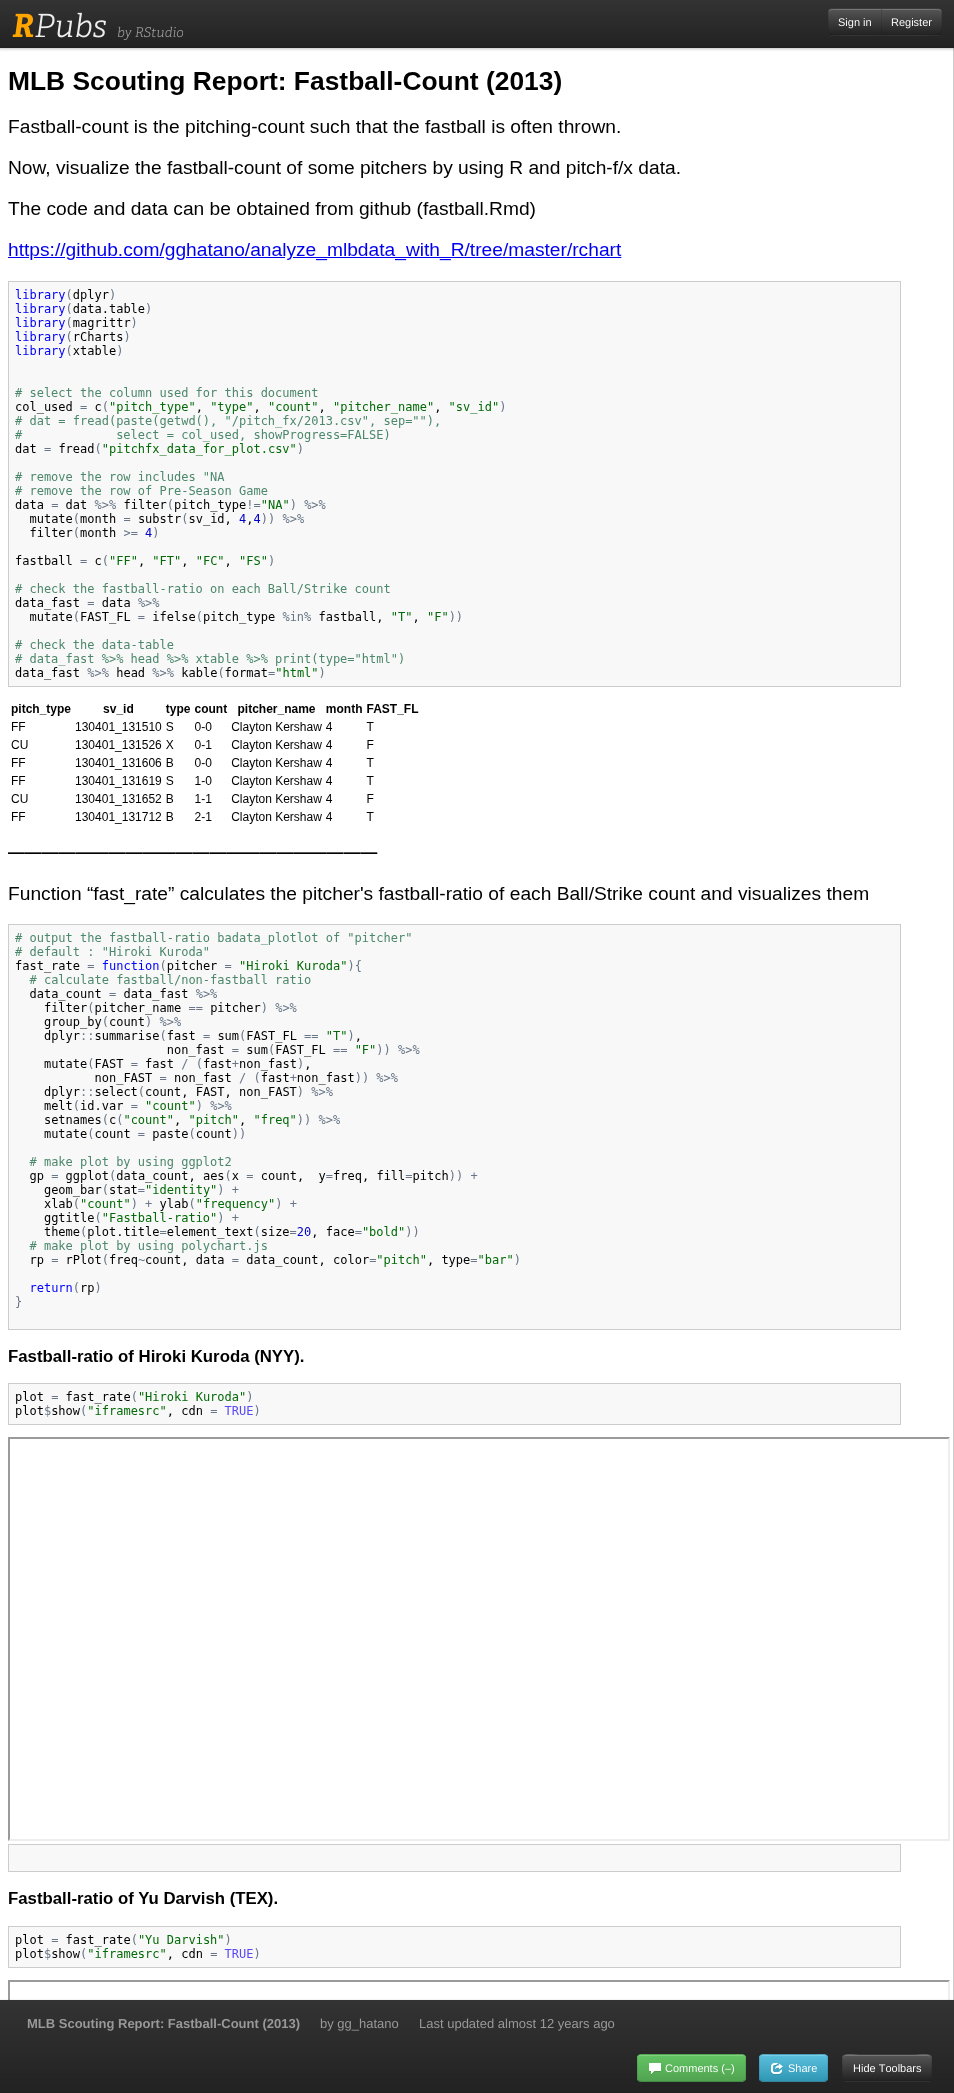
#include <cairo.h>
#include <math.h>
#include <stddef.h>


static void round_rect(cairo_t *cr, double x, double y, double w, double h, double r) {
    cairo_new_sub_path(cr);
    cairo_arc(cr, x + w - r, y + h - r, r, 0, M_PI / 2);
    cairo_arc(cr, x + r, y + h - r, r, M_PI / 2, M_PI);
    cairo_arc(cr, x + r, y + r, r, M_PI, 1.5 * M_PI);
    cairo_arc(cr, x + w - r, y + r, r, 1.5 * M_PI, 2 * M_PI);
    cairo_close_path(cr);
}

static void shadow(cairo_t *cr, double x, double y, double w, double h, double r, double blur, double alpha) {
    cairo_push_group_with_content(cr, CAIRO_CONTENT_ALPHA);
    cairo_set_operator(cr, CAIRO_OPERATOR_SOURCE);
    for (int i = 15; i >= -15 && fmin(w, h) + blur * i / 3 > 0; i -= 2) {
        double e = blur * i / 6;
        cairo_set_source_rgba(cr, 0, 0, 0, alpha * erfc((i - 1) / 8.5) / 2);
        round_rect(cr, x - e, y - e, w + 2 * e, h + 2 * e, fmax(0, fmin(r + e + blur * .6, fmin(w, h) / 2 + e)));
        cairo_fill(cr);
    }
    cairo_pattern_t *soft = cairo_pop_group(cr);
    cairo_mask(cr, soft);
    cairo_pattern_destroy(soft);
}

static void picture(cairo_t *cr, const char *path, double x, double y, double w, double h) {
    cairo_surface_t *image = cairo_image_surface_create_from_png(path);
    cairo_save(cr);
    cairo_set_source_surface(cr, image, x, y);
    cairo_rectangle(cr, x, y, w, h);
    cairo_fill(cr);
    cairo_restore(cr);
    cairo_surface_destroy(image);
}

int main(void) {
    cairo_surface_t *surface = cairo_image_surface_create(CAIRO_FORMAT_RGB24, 954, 2093);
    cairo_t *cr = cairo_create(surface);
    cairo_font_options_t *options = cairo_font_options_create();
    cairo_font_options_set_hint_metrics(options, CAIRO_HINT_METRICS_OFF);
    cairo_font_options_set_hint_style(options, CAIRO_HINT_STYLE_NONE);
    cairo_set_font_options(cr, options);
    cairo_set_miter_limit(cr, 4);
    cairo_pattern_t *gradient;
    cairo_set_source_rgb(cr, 1, 1, 1);
    cairo_paint(cr);
    picture(cr, "img1.png", 0, 48, 953, 1952);
    cairo_set_source_rgb(cr, 0.8, 0.8, 0.8);
    cairo_rectangle(cr, 953, 48, 1, 1952);
    cairo_fill(cr);
    cairo_set_source_rgb(cr, 0, 0, 0);
    shadow(cr, 0, 1, 954, 48, 0, 1.5, 0.25);
    gradient = cairo_pattern_create_linear(477, 0, 477, 48);
    cairo_pattern_add_color_stop_rgba(gradient, 0, 0.2, 0.2, 0.2, 1);
    cairo_pattern_add_color_stop_rgba(gradient, 1, 0.133, 0.133, 0.133, 1);
    cairo_set_source(cr, gradient);
    cairo_pattern_destroy(gradient);
    cairo_rectangle(cr, 0, 0, 954, 47);
    cairo_fill(cr);
    cairo_set_source_rgb(cr, 0.122, 0.122, 0.122);
    cairo_rectangle(cr, 0, 47, 954, 1);
    cairo_fill(cr);
    cairo_select_font_face(cr, "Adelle", CAIRO_FONT_SLANT_ITALIC, CAIRO_FONT_WEIGHT_BOLD);
    cairo_set_font_size(cr, 32);
    cairo_set_source_rgb(cr, 1, 0.647, 0);
    cairo_move_to(cr, 12, 37);
    cairo_show_text(cr, "R");
    cairo_select_font_face(cr, "Adelle Light", CAIRO_FONT_SLANT_ITALIC, CAIRO_FONT_WEIGHT_NORMAL);
    cairo_set_source_rgb(cr, 0.933, 0.933, 0.933);
    cairo_move_to(cr, 34, 37);
    cairo_show_text(cr, "Pubs");
    cairo_set_font_size(cr, 13.5);
    cairo_set_source_rgb(cr, 0.6, 0.6, 0.6);
    cairo_move_to(cr, 117, 37);
    cairo_show_text(cr, "by RStudio");
    cairo_set_source_rgb(cr, 0.255, 0.255, 0.255);
    cairo_new_path(cr);
    cairo_move_to(cr, 832, 8);
    cairo_line_to(cr, 882, 8);
    cairo_line_to(cr, 882, 36);
    cairo_line_to(cr, 832, 36);
    cairo_curve_to(cr, 830, 36, 828, 34, 828, 32);
    cairo_line_to(cr, 828, 12);
    cairo_curve_to(cr, 828, 10, 830, 8, 832, 8);
    cairo_close_path(cr);
    cairo_fill(cr);
    cairo_save(cr);
    cairo_new_path(cr);
    cairo_move_to(cr, 832, 8);
    cairo_line_to(cr, 882, 8);
    cairo_line_to(cr, 882, 36);
    cairo_line_to(cr, 832, 36);
    cairo_curve_to(cr, 830, 36, 828, 34, 828, 32);
    cairo_line_to(cr, 828, 12);
    cairo_curve_to(cr, 828, 10, 830, 8, 832, 8);
    cairo_close_path(cr);
    cairo_clip(cr);
    gradient = cairo_pattern_create_linear(855, 9, 855, 35);
    cairo_pattern_add_color_stop_rgba(gradient, 0, 0.333, 0.333, 0.333, 1);
    cairo_pattern_add_color_stop_rgba(gradient, 1, 0.133, 0.133, 0.133, 1);
    cairo_set_source(cr, gradient);
    cairo_pattern_destroy(gradient);
    cairo_rectangle(cr, 828, 9, 53, 26);
    cairo_fill(cr);
    cairo_restore(cr);
    cairo_set_source_rgb(cr, 0.463, 0.463, 0.463);
    cairo_new_path(cr);
    cairo_move_to(cr, 832, 10);
    cairo_line_to(cr, 881, 10);
    cairo_line_to(cr, 881, 9);
    cairo_line_to(cr, 832, 9);
    cairo_curve_to(cr, 830, 9, 829, 10, 829, 12);
    cairo_line_to(cr, 829, 13);
    cairo_curve_to(cr, 829, 11, 830, 10, 832, 10);
    cairo_close_path(cr);
    cairo_fill(cr);
    cairo_set_source_rgba(cr, 0, 0, 0, 0.1);
    cairo_new_path(cr);
    cairo_move_to(cr, 832, 8);
    cairo_line_to(cr, 829, 9);
    cairo_line_to(cr, 830, 10);
    cairo_curve_to(cr, 832, 8, 875, 9, 881, 9);
    cairo_line_to(cr, 882, 8);
    cairo_close_path(cr);
    cairo_fill(cr);
    cairo_set_source_rgba(cr, 0, 0, 0, 0.25);
    cairo_new_path(cr);
    cairo_move_to(cr, 882, 36);
    cairo_line_to(cr, 881, 35);
    cairo_curve_to(cr, 875, 35, 832, 36, 830, 34);
    cairo_line_to(cr, 829, 35);
    cairo_line_to(cr, 832, 36);
    cairo_close_path(cr);
    cairo_fill(cr);
    cairo_set_source_rgba(cr, 0, 0, 0, 0.1);
    cairo_new_path(cr);
    cairo_move_to(cr, 828, 12);
    cairo_line_to(cr, 828, 32);
    cairo_curve_to(cr, 828, 33, 828.5, 34, 829, 35);
    cairo_line_to(cr, 830, 34);
    cairo_curve_to(cr, 829, 34, 829, 33, 829, 32);
    cairo_line_to(cr, 829, 12);
    cairo_curve_to(cr, 829, 11, 829, 10, 830, 10);
    cairo_line_to(cr, 829, 9);
    cairo_curve_to(cr, 828.5, 10, 828, 11, 828, 12);
    cairo_close_path(cr);
    cairo_fill(cr);
    cairo_select_font_face(cr, "Liberation Sans", CAIRO_FONT_SLANT_NORMAL, CAIRO_FONT_WEIGHT_NORMAL);
    cairo_set_font_size(cr, 11);
    cairo_set_source_rgb(cr, 1, 1, 1);
    cairo_move_to(cr, 838, 26);
    cairo_show_text(cr, "Sign in");
    cairo_set_source_rgb(cr, 0.255, 0.255, 0.255);
    cairo_new_path(cr);
    cairo_move_to(cr, 881, 8);
    cairo_line_to(cr, 938, 8);
    cairo_curve_to(cr, 940, 8, 942, 10, 942, 12);
    cairo_line_to(cr, 942, 32);
    cairo_curve_to(cr, 942, 34, 940, 36, 938, 36);
    cairo_line_to(cr, 881, 36);
    cairo_close_path(cr);
    cairo_fill(cr);
    cairo_save(cr);
    cairo_new_path(cr);
    cairo_move_to(cr, 881, 8);
    cairo_line_to(cr, 938, 8);
    cairo_curve_to(cr, 940, 8, 942, 10, 942, 12);
    cairo_line_to(cr, 942, 32);
    cairo_curve_to(cr, 942, 34, 940, 36, 938, 36);
    cairo_line_to(cr, 881, 36);
    cairo_close_path(cr);
    cairo_clip(cr);
    gradient = cairo_pattern_create_linear(912, 9, 912, 35);
    cairo_pattern_add_color_stop_rgba(gradient, 0, 0.333, 0.333, 0.333, 1);
    cairo_pattern_add_color_stop_rgba(gradient, 1, 0.133, 0.133, 0.133, 1);
    cairo_set_source(cr, gradient);
    cairo_pattern_destroy(gradient);
    cairo_rectangle(cr, 881, 9, 61, 26);
    cairo_fill(cr);
    cairo_restore(cr);
    cairo_set_source_rgb(cr, 0.463, 0.463, 0.463);
    cairo_new_path(cr);
    cairo_move_to(cr, 882, 10);
    cairo_line_to(cr, 938, 10);
    cairo_curve_to(cr, 940, 10, 941, 11, 941, 13);
    cairo_line_to(cr, 941, 12);
    cairo_curve_to(cr, 941, 10, 940, 9, 938, 9);
    cairo_line_to(cr, 882, 9);
    cairo_close_path(cr);
    cairo_fill(cr);
    cairo_set_source_rgba(cr, 0, 0, 0, 0.1);
    cairo_new_path(cr);
    cairo_move_to(cr, 881, 8);
    cairo_line_to(cr, 882, 9);
    cairo_curve_to(cr, 889, 9, 938, 8, 940, 10);
    cairo_line_to(cr, 941, 9);
    cairo_line_to(cr, 938, 8);
    cairo_close_path(cr);
    cairo_fill(cr);
    cairo_new_path(cr);
    cairo_move_to(cr, 942, 32);
    cairo_line_to(cr, 942, 12);
    cairo_curve_to(cr, 942, 11, 941.5, 10, 941, 9);
    cairo_line_to(cr, 940, 10);
    cairo_curve_to(cr, 941, 10, 941, 11, 941, 12);
    cairo_line_to(cr, 941, 32);
    cairo_curve_to(cr, 941, 33, 941, 34, 940, 34);
    cairo_line_to(cr, 941, 35);
    cairo_curve_to(cr, 941.5, 34, 942, 33, 942, 32);
    cairo_close_path(cr);
    cairo_fill(cr);
    cairo_set_source_rgba(cr, 0, 0, 0, 0.25);
    cairo_new_path(cr);
    cairo_move_to(cr, 938, 36);
    cairo_line_to(cr, 941, 35);
    cairo_line_to(cr, 940, 34);
    cairo_curve_to(cr, 938, 36, 889, 35, 882, 35);
    cairo_line_to(cr, 881, 36);
    cairo_close_path(cr);
    cairo_fill(cr);
    cairo_set_source_rgba(cr, 0, 0, 0, 0.1);
    cairo_new_path(cr);
    cairo_move_to(cr, 881, 8);
    cairo_line_to(cr, 881, 36);
    cairo_line_to(cr, 882, 35);
    cairo_line_to(cr, 882, 9);
    cairo_close_path(cr);
    cairo_fill(cr);
    cairo_set_source_rgb(cr, 1, 1, 1);
    cairo_move_to(cr, 891, 26);
    cairo_show_text(cr, "Register");
    cairo_set_source_rgb(cr, 0, 0, 0);
    shadow(cr, 0, 2001, 954, 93, 0, 1.5, 0.25);
    gradient = cairo_pattern_create_linear(477, 2000, 477, 2093);
    cairo_pattern_add_color_stop_rgba(gradient, 0, 0.2, 0.2, 0.2, 1);
    cairo_pattern_add_color_stop_rgba(gradient, 1, 0.133, 0.133, 0.133, 1);
    cairo_set_source(cr, gradient);
    cairo_pattern_destroy(gradient);
    cairo_rectangle(cr, 0, 2000, 954, 92);
    cairo_fill(cr);
    cairo_set_source_rgb(cr, 0.122, 0.122, 0.122);
    cairo_rectangle(cr, 0, 2092, 954, 1);
    cairo_fill(cr);
    cairo_select_font_face(cr, "Liberation Sans", CAIRO_FONT_SLANT_NORMAL, CAIRO_FONT_WEIGHT_BOLD);
    cairo_set_font_size(cr, 13);
    cairo_set_source_rgb(cr, 0.6, 0.6, 0.6);
    cairo_move_to(cr, 27, 2028);
    cairo_show_text(cr, "MLB Scouting Report: Fastball-Count (2013)");
    cairo_select_font_face(cr, "Liberation Sans", CAIRO_FONT_SLANT_NORMAL, CAIRO_FONT_WEIGHT_NORMAL);
    cairo_move_to(cr, 320, 2028);
    cairo_show_text(cr, "by gg_hatano");
    cairo_move_to(cr, 419, 2028);
    cairo_show_text(cr, "Last updated almost 12 years ago");
    cairo_set_source_rgb(cr, 0.357, 0.718, 0.357);
    round_rect(cr, 637, 2054, 109, 28, 4);
    cairo_fill(cr);
    cairo_save(cr);
    round_rect(cr, 637, 2054, 109, 28, 4);
    cairo_clip(cr);
    gradient = cairo_pattern_create_linear(692, 2055, 692, 2081);
    cairo_pattern_add_color_stop_rgba(gradient, 0, 0.384, 0.769, 0.384, 1);
    cairo_pattern_add_color_stop_rgba(gradient, 1, 0.318, 0.639, 0.318, 1);
    cairo_set_source(cr, gradient);
    cairo_pattern_destroy(gradient);
    cairo_rectangle(cr, 637, 2055, 109, 26);
    cairo_fill(cr);
    cairo_restore(cr);
    cairo_set_source_rgb(cr, 0.506, 0.812, 0.506);
    cairo_set_fill_rule(cr, CAIRO_FILL_RULE_EVEN_ODD);
    cairo_new_path(cr);
    cairo_move_to(cr, 641, 2056);
    cairo_line_to(cr, 743, 2056);
    cairo_curve_to(cr, 744, 2056, 745, 2058, 745, 2059);
    cairo_line_to(cr, 745, 2058);
    cairo_curve_to(cr, 745, 2056, 744, 2055, 742, 2055);
    cairo_line_to(cr, 641, 2055);
    cairo_curve_to(cr, 639, 2055, 638, 2056, 638, 2058);
    cairo_curve_to(cr, 638, 2057, 639, 2056, 641, 2056);
    cairo_close_path(cr);
    cairo_move_to(cr, 745, 2076);
    cairo_line_to(cr, 745, 2079);
    cairo_close_path(cr);
    cairo_fill(cr);
    cairo_new_path(cr);
    cairo_move_to(cr, 744.5, 2080.5);
    cairo_line_to(cr, 742.5, 2081.5);
    cairo_line_to(cr, 658, 2081.5);
    cairo_line_to(cr, 641, 2081.5);
    cairo_line_to(cr, 638.5, 2080.5);
    cairo_set_source_rgba(cr, 0, 0, 0, 0.25);
    cairo_set_line_width(cr, 1);
    cairo_stroke(cr);
    cairo_new_path(cr);
    cairo_move_to(cr, 638.5, 2080.5);
    cairo_curve_to(cr, 636.5, 2078.5, 637.5, 2074, 637.5, 2071.5);
    cairo_curve_to(cr, 637.5, 2050.5, 634.5, 2054.5, 658, 2054.5);
    cairo_line_to(cr, 725, 2054.5);
    cairo_curve_to(cr, 748.5, 2054.5, 745.5, 2050.5, 745.5, 2071.5);
    cairo_curve_to(cr, 745.5, 2074, 746.5, 2078.5, 744.5, 2080.5);
    cairo_set_source_rgba(cr, 0, 0, 0, 0.1);
    cairo_stroke(cr);
    picture(cr, "img2.png", 649, 2063, 12, 12);
    cairo_set_font_size(cr, 11);
    cairo_set_source_rgb(cr, 1, 1, 1);
    cairo_move_to(cr, 665, 2072);
    cairo_show_text(cr, "Comments (–)");
    cairo_set_source_rgb(cr, 0.286, 0.686, 0.804);
    round_rect(cr, 759, 2054, 69, 28, 4);
    cairo_fill(cr);
    cairo_save(cr);
    cairo_set_fill_rule(cr, CAIRO_FILL_RULE_WINDING);
    round_rect(cr, 759, 2054, 69, 28, 4);
    cairo_clip(cr);
    gradient = cairo_pattern_create_linear(794, 2055, 794, 2081);
    cairo_pattern_add_color_stop_rgba(gradient, 0, 0.357, 0.753, 0.871, 1);
    cairo_pattern_add_color_stop_rgba(gradient, 1, 0.184, 0.588, 0.706, 1);
    cairo_set_source(cr, gradient);
    cairo_pattern_destroy(gradient);
    cairo_rectangle(cr, 759, 2055, 69, 26);
    cairo_fill(cr);
    cairo_restore(cr);
    cairo_set_source_rgba(cr, 1, 1, 1, 0.2);
    cairo_set_fill_rule(cr, CAIRO_FILL_RULE_WINDING);
    cairo_new_path(cr);
    cairo_move_to(cr, 763, 2056);
    cairo_line_to(cr, 824, 2056);
    cairo_curve_to(cr, 826, 2056, 827, 2057, 827, 2059);
    cairo_curve_to(cr, 827, 2052, 818, 2055, 814, 2055);
    cairo_line_to(cr, 773, 2055);
    cairo_curve_to(cr, 769, 2055, 760, 2052, 760, 2059);
    cairo_curve_to(cr, 760, 2057, 761, 2056, 763, 2056);
    cairo_close_path(cr);
    cairo_fill(cr);
    cairo_new_path(cr);
    cairo_move_to(cr, 826.5, 2080.5);
    cairo_line_to(cr, 824.5, 2081.5);
    cairo_line_to(cr, 762.5, 2081.5);
    cairo_line_to(cr, 760.5, 2080.5);
    cairo_set_source_rgba(cr, 0, 0, 0, 0.25);
    cairo_stroke(cr);
    cairo_new_path(cr);
    cairo_move_to(cr, 760.5, 2080.5);
    cairo_curve_to(cr, 758.5, 2078, 759.5, 2070.5, 759.5, 2068);
    cairo_curve_to(cr, 759.5, 2053, 757.5, 2054.5, 773, 2054.5);
    cairo_line_to(cr, 814, 2054.5);
    cairo_curve_to(cr, 829.5, 2054.5, 827.5, 2053, 827.5, 2068);
    cairo_curve_to(cr, 827.5, 2070.5, 828.5, 2078, 826.5, 2080.5);
    cairo_set_source_rgba(cr, 0, 0, 0, 0.1);
    cairo_stroke(cr);
    picture(cr, "img3.png", 771, 2063, 12, 12);
    cairo_set_source_rgb(cr, 1, 1, 1);
    cairo_move_to(cr, 788, 2072);
    cairo_show_text(cr, "Share");
    cairo_set_source_rgb(cr, 0.255, 0.255, 0.255);
    round_rect(cr, 842, 2054, 90, 28, 4);
    cairo_fill(cr);
    cairo_save(cr);
    round_rect(cr, 842, 2054, 90, 28, 4);
    cairo_clip(cr);
    gradient = cairo_pattern_create_linear(887, 2055, 887, 2081);
    cairo_pattern_add_color_stop_rgba(gradient, 0, 0.333, 0.333, 0.333, 1);
    cairo_pattern_add_color_stop_rgba(gradient, 1, 0.133, 0.133, 0.133, 1);
    cairo_set_source(cr, gradient);
    cairo_pattern_destroy(gradient);
    cairo_rectangle(cr, 842, 2055, 90, 26);
    cairo_fill(cr);
    cairo_restore(cr);
    cairo_set_source_rgba(cr, 1, 1, 1, 0.2);
    cairo_new_path(cr);
    cairo_move_to(cr, 846, 2056);
    cairo_line_to(cr, 928, 2056);
    cairo_curve_to(cr, 930, 2056, 931, 2057, 931, 2059);
    cairo_curve_to(cr, 931, 2051, 918, 2055, 914, 2055);
    cairo_line_to(cr, 860, 2055);
    cairo_curve_to(cr, 856, 2055, 843, 2051, 843, 2059);
    cairo_curve_to(cr, 843, 2057, 844, 2056, 846, 2056);
    cairo_close_path(cr);
    cairo_fill(cr);
    cairo_new_path(cr);
    cairo_move_to(cr, 930.5, 2080.5);
    cairo_line_to(cr, 928.5, 2081.5);
    cairo_line_to(cr, 845.5, 2081.5);
    cairo_line_to(cr, 843.5, 2080.5);
    cairo_set_source_rgba(cr, 0, 0, 0, 0.25);
    cairo_stroke(cr);
    cairo_new_path(cr);
    cairo_move_to(cr, 843.5, 2080.5);
    cairo_curve_to(cr, 841.5, 2078.5, 842.5, 2074, 842.5, 2071.5);
    cairo_curve_to(cr, 842.5, 2052, 839.5, 2054.5, 859.5, 2054.5);
    cairo_line_to(cr, 914.5, 2054.5);
    cairo_curve_to(cr, 934.5, 2054.5, 931.5, 2052, 931.5, 2071.5);
    cairo_curve_to(cr, 931.5, 2074, 932.5, 2078.5, 930.5, 2080.5);
    cairo_set_source_rgba(cr, 0, 0, 0, 0.1);
    cairo_stroke(cr);
    cairo_set_source_rgb(cr, 1, 1, 1);
    cairo_move_to(cr, 853, 2072);
    cairo_show_text(cr, "Hide Toolbars");
    cairo_surface_write_to_png(surface, "page.png");
    cairo_font_options_destroy(options);
    cairo_destroy(cr);
    cairo_surface_destroy(surface);
    return 0;
}
